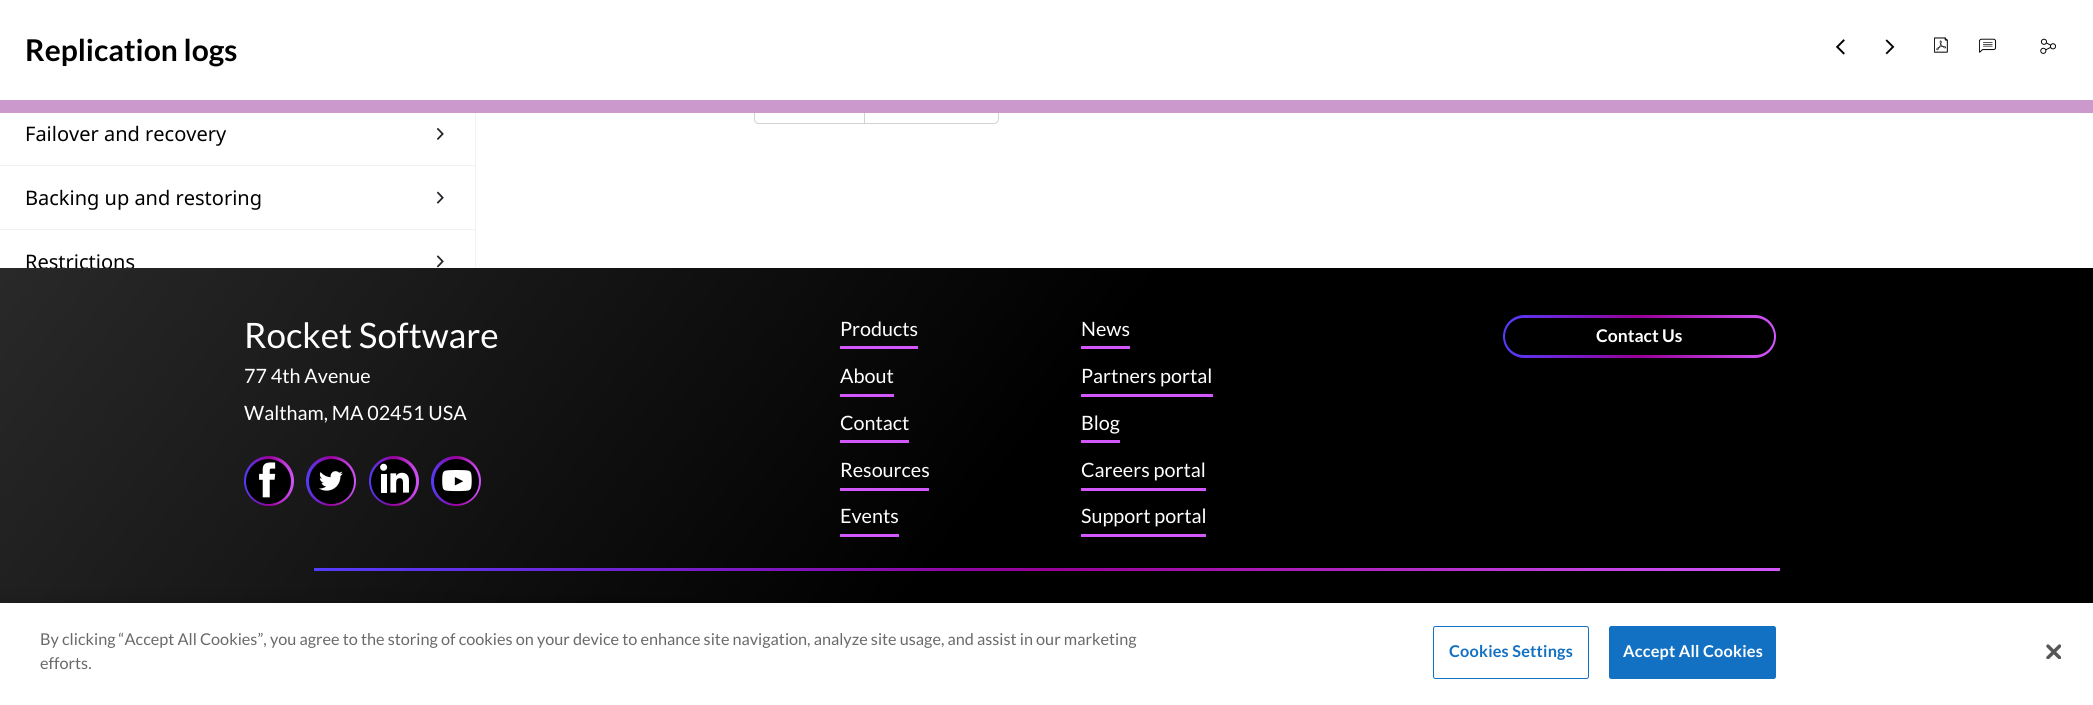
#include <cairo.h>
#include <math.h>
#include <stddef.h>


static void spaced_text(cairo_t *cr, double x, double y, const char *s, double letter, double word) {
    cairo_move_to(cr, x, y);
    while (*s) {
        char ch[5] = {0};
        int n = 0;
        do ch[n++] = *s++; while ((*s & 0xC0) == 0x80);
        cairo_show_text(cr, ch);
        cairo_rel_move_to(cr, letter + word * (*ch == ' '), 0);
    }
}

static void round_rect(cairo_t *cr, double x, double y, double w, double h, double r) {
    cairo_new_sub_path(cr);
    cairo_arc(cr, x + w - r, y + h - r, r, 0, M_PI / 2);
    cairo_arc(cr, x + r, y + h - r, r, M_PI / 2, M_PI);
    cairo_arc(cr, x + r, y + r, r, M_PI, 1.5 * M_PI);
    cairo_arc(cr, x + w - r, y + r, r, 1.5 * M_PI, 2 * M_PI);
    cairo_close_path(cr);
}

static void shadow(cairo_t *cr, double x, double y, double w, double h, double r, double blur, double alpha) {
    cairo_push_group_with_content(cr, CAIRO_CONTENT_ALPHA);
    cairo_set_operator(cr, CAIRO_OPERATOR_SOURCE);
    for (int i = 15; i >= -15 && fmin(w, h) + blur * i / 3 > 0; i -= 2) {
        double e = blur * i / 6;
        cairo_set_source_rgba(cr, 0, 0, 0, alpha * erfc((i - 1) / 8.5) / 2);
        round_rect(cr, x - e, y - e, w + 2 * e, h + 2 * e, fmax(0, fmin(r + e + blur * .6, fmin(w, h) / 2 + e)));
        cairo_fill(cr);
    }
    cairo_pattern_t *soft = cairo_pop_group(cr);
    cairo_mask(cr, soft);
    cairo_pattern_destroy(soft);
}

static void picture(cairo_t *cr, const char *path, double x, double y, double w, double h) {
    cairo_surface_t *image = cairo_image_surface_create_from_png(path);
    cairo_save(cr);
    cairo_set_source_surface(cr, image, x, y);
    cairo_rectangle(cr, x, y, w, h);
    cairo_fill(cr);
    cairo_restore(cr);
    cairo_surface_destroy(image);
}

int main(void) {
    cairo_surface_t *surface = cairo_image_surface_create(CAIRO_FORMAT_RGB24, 2093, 705);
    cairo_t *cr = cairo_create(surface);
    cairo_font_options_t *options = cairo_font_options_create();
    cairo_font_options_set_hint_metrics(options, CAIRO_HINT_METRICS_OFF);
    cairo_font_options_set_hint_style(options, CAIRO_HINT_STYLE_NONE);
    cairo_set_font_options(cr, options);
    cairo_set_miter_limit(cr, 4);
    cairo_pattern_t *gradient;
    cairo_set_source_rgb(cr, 1, 1, 1);
    cairo_paint(cr);
    round_rect(cr, 754.5, 74.5, 244, 49, 4.5);
    cairo_set_source_rgb(cr, 0.824, 0.824, 0.824);
    cairo_set_line_width(cr, 1);
    cairo_stroke(cr);
    cairo_set_source_rgb(cr, 1, 1, 1);
    cairo_rectangle(cr, 754, 74, 245, 26);
    cairo_fill(cr);
    cairo_select_font_face(cr, "Lato", CAIRO_FONT_SLANT_NORMAL, CAIRO_FONT_WEIGHT_BOLD);
    cairo_set_font_size(cr, 30);
    cairo_set_source_rgb(cr, 0, 0, 0);
    cairo_move_to(cr, 25, 61);
    cairo_show_text(cr, "Replication logs");
    picture(cr, "img1.png", 1835, 39, 10, 16);
    picture(cr, "img2.png", 1885, 39, 10, 16);
    picture(cr, "img3.png", 1934, 37, 14, 16);
    picture(cr, "img4.png", 1979, 38, 18, 15);
    picture(cr, "img5.png", 2040, 38, 16, 16);
    cairo_set_source_rgb(cr, 0.8, 0.6, 0.8);
    cairo_rectangle(cr, 0, 100, 2093, 13);
    cairo_fill(cr);
    cairo_set_source_rgb(cr, 0.824, 0.824, 0.824);
    cairo_rectangle(cr, 864, 113, 1, 10);
    cairo_fill(cr);
    cairo_set_source_rgb(cr, 0.949, 0.949, 0.949);
    cairo_rectangle(cr, 475, 113, 1, 155);
    cairo_fill(cr);
    cairo_rectangle(cr, 0, 165, 475, 1);
    cairo_fill(cr);
    cairo_select_font_face(cr, "Noto Sans", CAIRO_FONT_SLANT_NORMAL, CAIRO_FONT_WEIGHT_NORMAL);
    cairo_set_font_size(cr, 20);
    cairo_set_source_rgb(cr, 0, 0, 0);
    cairo_move_to(cr, 25, 141);
    cairo_show_text(cr, "Failover and recovery");
    picture(cr, "img6.png", 436, 128, 8, 12);
    cairo_set_source_rgb(cr, 0.949, 0.949, 0.949);
    cairo_rectangle(cr, 0, 229, 475, 1);
    cairo_fill(cr);
    cairo_set_source_rgb(cr, 0, 0, 0);
    cairo_move_to(cr, 25, 205);
    cairo_show_text(cr, "Backing up and restoring");
    picture(cr, "img7.png", 436, 191, 8, 13);
    cairo_move_to(cr, 25, 269);
    cairo_show_text(cr, "Restrictions");
    picture(cr, "img8.png", 436, 255, 8, 13);
    gradient = cairo_pattern_create_linear(290, -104, 1804, 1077);
    cairo_pattern_add_color_stop_rgba(gradient, 0, 0.161, 0.161, 0.161, 1);
    cairo_pattern_add_color_stop_rgba(gradient, 0.48, 0, 0, 0, 1);
    cairo_pattern_add_color_stop_rgba(gradient, 1, 0, 0, 0, 1);
    cairo_set_source(cr, gradient);
    cairo_pattern_destroy(gradient);
    cairo_rectangle(cr, 0, 268, 2093, 335);
    cairo_fill(cr);
    cairo_select_font_face(cr, "Lato", CAIRO_FONT_SLANT_NORMAL, CAIRO_FONT_WEIGHT_NORMAL);
    cairo_set_font_size(cr, 35);
    cairo_set_source_rgb(cr, 1, 1, 1);
    cairo_move_to(cr, 244, 348);
    cairo_show_text(cr, "Rocket Software");
    cairo_set_font_size(cr, 19.75);
    cairo_move_to(cr, 244, 383);
    cairo_show_text(cr, "77 4th Avenue");
    cairo_move_to(cr, 244, 420);
    cairo_show_text(cr, "Waltham, MA 02451 USA");
    gradient = cairo_pattern_create_linear(244, 481, 294, 481);
    cairo_pattern_add_color_stop_rgba(gradient, 0, 0.329, 0.235, 0.984, 1);
    cairo_pattern_add_color_stop_rgba(gradient, 0.5, 0.6, 0, 0.6, 1);
    cairo_pattern_add_color_stop_rgba(gradient, 1, 0.824, 0.341, 0.988, 1);
    cairo_set_source(cr, gradient);
    cairo_pattern_destroy(gradient);
    cairo_new_path(cr);
    cairo_arc(cr, 269, 481, 25, 0, 2 * M_PI);
    cairo_fill(cr);
    cairo_set_source_rgb(cr, 0, 0, 0);
    cairo_arc(cr, 268.5, 481.5, 22.5, 0, 2 * M_PI);
    cairo_fill(cr);
    picture(cr, "img9.png", 259, 462, 17, 36);
    gradient = cairo_pattern_create_linear(306, 481, 356, 481);
    cairo_pattern_add_color_stop_rgba(gradient, 0, 0.329, 0.235, 0.984, 1);
    cairo_pattern_add_color_stop_rgba(gradient, 0.5, 0.6, 0, 0.6, 1);
    cairo_pattern_add_color_stop_rgba(gradient, 1, 0.824, 0.341, 0.988, 1);
    cairo_set_source(cr, gradient);
    cairo_pattern_destroy(gradient);
    cairo_arc(cr, 331, 481, 25, 0, 2 * M_PI);
    cairo_fill(cr);
    cairo_set_source_rgb(cr, 0, 0, 0);
    cairo_arc(cr, 331.5, 481.5, 22.5, 0, 2 * M_PI);
    cairo_fill(cr);
    picture(cr, "img10.png", 319, 471, 24, 20);
    gradient = cairo_pattern_create_linear(369, 481, 419, 481);
    cairo_pattern_add_color_stop_rgba(gradient, 0, 0.329, 0.235, 0.984, 1);
    cairo_pattern_add_color_stop_rgba(gradient, 0.5, 0.6, 0, 0.6, 1);
    cairo_pattern_add_color_stop_rgba(gradient, 1, 0.824, 0.341, 0.988, 1);
    cairo_set_source(cr, gradient);
    cairo_pattern_destroy(gradient);
    cairo_arc(cr, 394, 481, 25, 0, 2 * M_PI);
    cairo_fill(cr);
    cairo_set_source_rgb(cr, 0, 0, 0);
    cairo_arc(cr, 393.5, 481.5, 22.5, 0, 2 * M_PI);
    cairo_fill(cr);
    picture(cr, "img11.png", 380, 463, 29, 30);
    gradient = cairo_pattern_create_linear(431, 481, 481, 481);
    cairo_pattern_add_color_stop_rgba(gradient, 0, 0.329, 0.235, 0.984, 1);
    cairo_pattern_add_color_stop_rgba(gradient, 0.5, 0.6, 0, 0.6, 1);
    cairo_pattern_add_color_stop_rgba(gradient, 1, 0.824, 0.341, 0.988, 1);
    cairo_set_source(cr, gradient);
    cairo_pattern_destroy(gradient);
    cairo_arc(cr, 456, 481, 25, 0, 2 * M_PI);
    cairo_fill(cr);
    cairo_set_source_rgb(cr, 0, 0, 0);
    cairo_arc(cr, 456.5, 481.5, 22.5, 0, 2 * M_PI);
    cairo_fill(cr);
    picture(cr, "img12.png", 442, 470, 30, 22);
    cairo_set_source_rgb(cr, 1, 1, 1);
    cairo_move_to(cr, 840, 336);
    cairo_show_text(cr, "Products");
    cairo_set_source_rgb(cr, 0.824, 0.341, 0.988);
    cairo_rectangle(cr, 840, 346, 78, 3);
    cairo_fill(cr);
    cairo_set_source_rgb(cr, 1, 1, 1);
    cairo_move_to(cr, 840, 383);
    cairo_show_text(cr, "About");
    cairo_set_source_rgb(cr, 0.824, 0.341, 0.988);
    cairo_rectangle(cr, 840, 394, 54, 3);
    cairo_fill(cr);
    cairo_set_source_rgb(cr, 1, 1, 1);
    cairo_move_to(cr, 840, 430);
    cairo_show_text(cr, "Contact");
    cairo_set_source_rgb(cr, 0.824, 0.341, 0.988);
    cairo_rectangle(cr, 840, 440, 69, 3);
    cairo_fill(cr);
    cairo_set_source_rgb(cr, 1, 1, 1);
    cairo_move_to(cr, 840, 477);
    cairo_show_text(cr, "Resources");
    cairo_set_source_rgb(cr, 0.824, 0.341, 0.988);
    cairo_rectangle(cr, 840, 488, 89, 3);
    cairo_fill(cr);
    cairo_set_source_rgb(cr, 1, 1, 1);
    cairo_move_to(cr, 840, 523);
    cairo_show_text(cr, "Events");
    cairo_set_source_rgb(cr, 0.824, 0.341, 0.988);
    cairo_rectangle(cr, 840, 534, 59, 3);
    cairo_fill(cr);
    cairo_set_source_rgb(cr, 1, 1, 1);
    cairo_move_to(cr, 1081, 336);
    cairo_show_text(cr, "News");
    cairo_set_source_rgb(cr, 0.824, 0.341, 0.988);
    cairo_rectangle(cr, 1081, 346, 49, 3);
    cairo_fill(cr);
    cairo_set_source_rgb(cr, 1, 1, 1);
    cairo_move_to(cr, 1081, 383);
    cairo_show_text(cr, "Partners portal");
    cairo_set_source_rgb(cr, 0.824, 0.341, 0.988);
    cairo_rectangle(cr, 1081, 394, 132, 3);
    cairo_fill(cr);
    cairo_set_source_rgb(cr, 1, 1, 1);
    cairo_move_to(cr, 1081, 430);
    cairo_show_text(cr, "Blog");
    cairo_set_source_rgb(cr, 0.824, 0.341, 0.988);
    cairo_rectangle(cr, 1081, 440, 39, 3);
    cairo_fill(cr);
    cairo_set_source_rgb(cr, 1, 1, 1);
    cairo_move_to(cr, 1081, 477);
    cairo_show_text(cr, "Careers portal");
    cairo_set_source_rgb(cr, 0.824, 0.341, 0.988);
    cairo_rectangle(cr, 1081, 488, 125, 3);
    cairo_fill(cr);
    cairo_set_source_rgb(cr, 1, 1, 1);
    cairo_move_to(cr, 1081, 523);
    cairo_show_text(cr, "Support portal");
    cairo_set_source_rgb(cr, 0.824, 0.341, 0.988);
    cairo_rectangle(cr, 1081, 534, 125, 3);
    cairo_fill(cr);
    gradient = cairo_pattern_create_linear(1503, 336, 1776, 336);
    cairo_pattern_add_color_stop_rgba(gradient, 0, 0.329, 0.235, 0.984, 1);
    cairo_pattern_add_color_stop_rgba(gradient, 0.5, 0.6, 0, 0.6, 1);
    cairo_pattern_add_color_stop_rgba(gradient, 1, 0.824, 0.341, 0.988, 1);
    cairo_set_source(cr, gradient);
    cairo_pattern_destroy(gradient);
    round_rect(cr, 1503, 315, 273, 43, 21.5);
    cairo_fill(cr);
    cairo_set_source_rgb(cr, 0, 0, 0);
    round_rect(cr, 1505, 318, 269, 37, 18.5);
    cairo_fill(cr);
    cairo_select_font_face(cr, "Lato", CAIRO_FONT_SLANT_NORMAL, CAIRO_FONT_WEIGHT_BOLD);
    cairo_set_font_size(cr, 17.5);
    cairo_set_source_rgb(cr, 1, 1, 1);
    cairo_move_to(cr, 1596, 342);
    cairo_show_text(cr, "Contact Us");
    gradient = cairo_pattern_create_linear(314, 569, 1780, 569);
    cairo_pattern_add_color_stop_rgba(gradient, 0, 0.329, 0.235, 0.984, 1);
    cairo_pattern_add_color_stop_rgba(gradient, 0.5, 0.6, 0, 0.6, 1);
    cairo_pattern_add_color_stop_rgba(gradient, 1, 0.824, 0.341, 0.988, 1);
    cairo_set_source(cr, gradient);
    cairo_pattern_destroy(gradient);
    cairo_rectangle(cr, 314, 568, 1466, 3);
    cairo_fill(cr);
    cairo_set_source_rgb(cr, 0, 0, 0);
    shadow(cr, 0, 603, 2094, 102, 0, 11, 0.2);
    cairo_set_source_rgb(cr, 1, 1, 1);
    cairo_rectangle(cr, 0, 603, 2093, 102);
    cairo_fill(cr);
    cairo_select_font_face(cr, "Lato", CAIRO_FONT_SLANT_NORMAL, CAIRO_FONT_WEIGHT_NORMAL);
    cairo_set_font_size(cr, 16.25);
    cairo_set_source_rgb(cr, 0.412, 0.412, 0.412);
    cairo_move_to(cr, 40, 645);
    cairo_show_text(cr, "By clicking “Accept All Cookies”, you agree to the storing of cookies on your device to enhance site navigation, analyze site usage, and assist in our marketing");
    cairo_move_to(cr, 40, 669);
    cairo_show_text(cr, "efforts.");
    round_rect(cr, 1433.5, 626.5, 155, 52, 2);
    cairo_set_source_rgb(cr, 0.075, 0.443, 0.765);
    cairo_stroke(cr);
    cairo_select_font_face(cr, "Lato", CAIRO_FONT_SLANT_NORMAL, CAIRO_FONT_WEIGHT_BOLD);
    spaced_text(cr, 1449, 657, "Cookies Settings", 0.2, 0);
    round_rect(cr, 1609.5, 626.5, 166, 52, 2);
    cairo_fill_preserve(cr);
    cairo_stroke(cr);
    cairo_set_source_rgb(cr, 1, 1, 1);
    spaced_text(cr, 1623, 657, "Accept All Cookies", 0.2, 0);
    picture(cr, "img13.png", 2046, 644, 15, 15);
    cairo_surface_write_to_png(surface, "page.png");
    cairo_font_options_destroy(options);
    cairo_destroy(cr);
    cairo_surface_destroy(surface);
    return 0;
}
